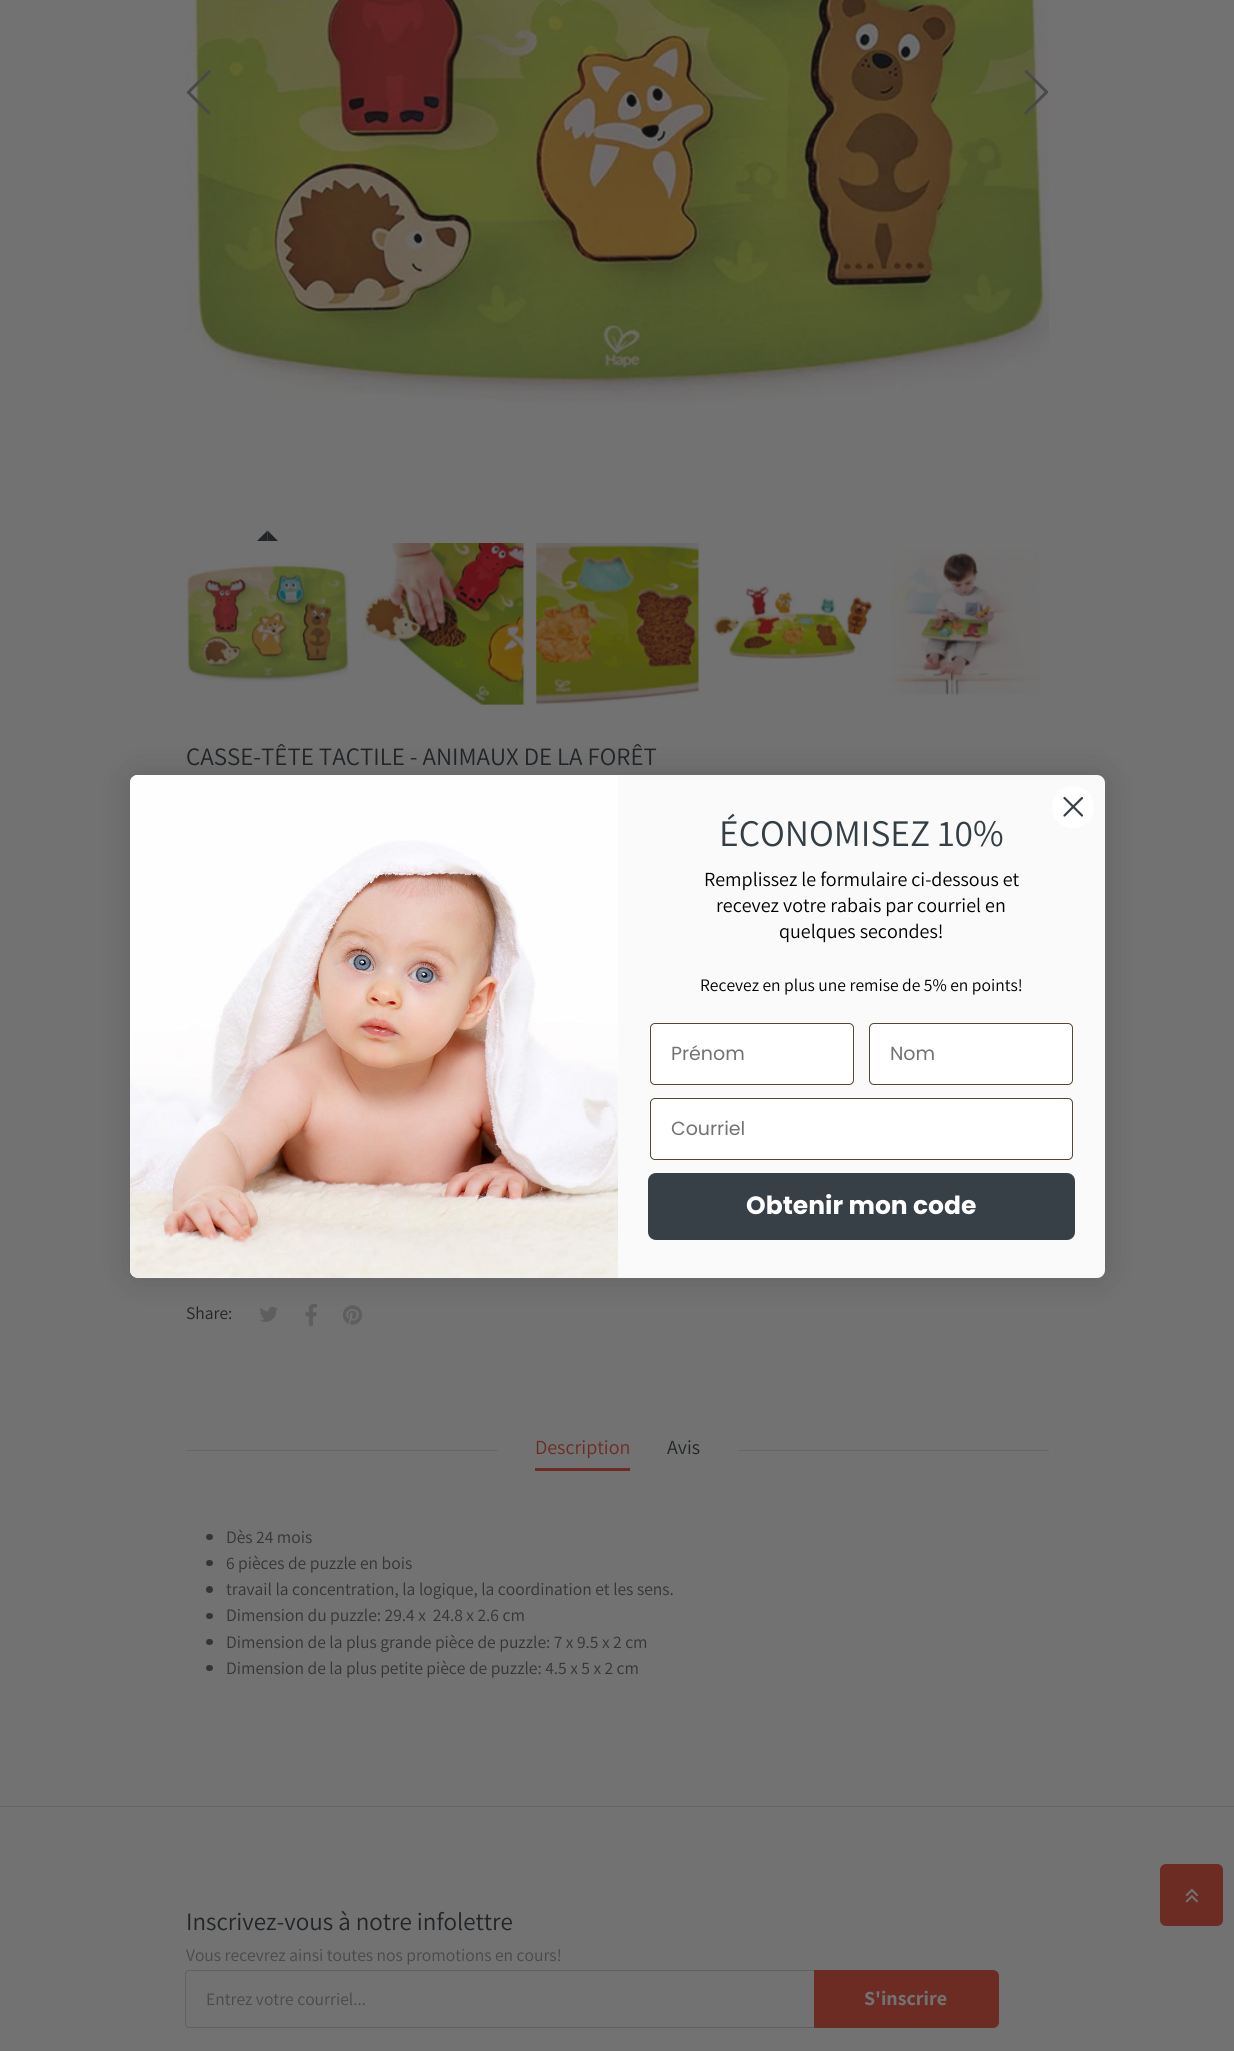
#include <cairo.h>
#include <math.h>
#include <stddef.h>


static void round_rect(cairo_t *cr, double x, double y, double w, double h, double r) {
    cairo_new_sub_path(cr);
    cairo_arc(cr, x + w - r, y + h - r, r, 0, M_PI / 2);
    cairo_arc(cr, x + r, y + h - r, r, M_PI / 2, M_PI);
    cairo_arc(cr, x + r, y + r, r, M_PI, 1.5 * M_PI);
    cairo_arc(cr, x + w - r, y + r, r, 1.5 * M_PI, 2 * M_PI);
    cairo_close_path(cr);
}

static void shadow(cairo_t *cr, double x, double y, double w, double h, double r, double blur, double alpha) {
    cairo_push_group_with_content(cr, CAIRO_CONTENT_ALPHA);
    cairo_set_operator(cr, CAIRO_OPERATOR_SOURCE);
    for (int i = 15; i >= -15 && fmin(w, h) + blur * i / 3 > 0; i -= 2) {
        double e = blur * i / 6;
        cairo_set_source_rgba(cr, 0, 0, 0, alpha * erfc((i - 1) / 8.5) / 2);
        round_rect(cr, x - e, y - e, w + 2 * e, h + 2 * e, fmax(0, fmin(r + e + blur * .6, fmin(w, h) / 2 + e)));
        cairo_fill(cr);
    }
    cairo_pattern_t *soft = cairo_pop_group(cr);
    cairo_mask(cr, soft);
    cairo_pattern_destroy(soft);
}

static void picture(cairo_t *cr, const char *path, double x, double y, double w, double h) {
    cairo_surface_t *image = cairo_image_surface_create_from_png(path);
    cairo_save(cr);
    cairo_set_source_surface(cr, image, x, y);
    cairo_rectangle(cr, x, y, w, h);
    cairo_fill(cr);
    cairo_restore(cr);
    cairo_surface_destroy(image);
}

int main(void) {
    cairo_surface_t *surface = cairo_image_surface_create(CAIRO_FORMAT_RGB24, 1234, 2051);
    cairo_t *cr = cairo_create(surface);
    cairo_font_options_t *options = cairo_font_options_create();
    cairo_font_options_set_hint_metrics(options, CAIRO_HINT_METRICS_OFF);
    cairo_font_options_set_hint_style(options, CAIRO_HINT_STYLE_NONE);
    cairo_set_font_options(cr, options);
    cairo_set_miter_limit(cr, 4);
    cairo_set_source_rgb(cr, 0.447, 0.447, 0.447);
    cairo_paint(cr);
    picture(cr, "img1.png", 186, 0, 863, 404);
    picture(cr, "img2.png", 186, 70, 25, 45);
    picture(cr, "img3.png", 1024, 70, 25, 45);
    cairo_set_source_rgb(cr, 0.129, 0.145, 0.157);
    cairo_new_path(cr);
    cairo_move_to(cr, 267.5, 530.5);
    cairo_line_to(cr, 278, 541);
    cairo_line_to(cr, 267.5, 541);
    cairo_close_path(cr);
    cairo_fill(cr);
    cairo_new_path(cr);
    cairo_move_to(cr, 257, 541);
    cairo_line_to(cr, 267.5, 530.5);
    cairo_line_to(cr, 267.5, 541);
    cairo_close_path(cr);
    cairo_fill(cr);
    picture(cr, "img4.png", 186, 561, 163, 121);
    picture(cr, "img5.png", 361, 543, 164, 162);
    picture(cr, "img6.png", 536, 543, 164, 162);
    picture(cr, "img7.png", 712, 585, 161, 75);
    picture(cr, "img8.png", 890, 550, 149, 145);
    cairo_select_font_face(cr, "Assistant", CAIRO_FONT_SLANT_NORMAL, CAIRO_FONT_WEIGHT_NORMAL);
    cairo_set_font_size(cr, 25);
    cairo_move_to(cr, 186, 765);
    cairo_show_text(cr, "CASSE-TÊTE TACTILE - ANIMAUX DE LA FORÊT");
    cairo_set_font_size(cr, 17.5);
    cairo_move_to(cr, 186, 1319);
    cairo_show_text(cr, "Share:");
    picture(cr, "img9.png", 259, 1306, 19, 16);
    picture(cr, "img10.png", 305, 1304, 12, 22);
    picture(cr, "img11.png", 343, 1305, 20, 20);
    cairo_set_source_rgb(cr, 0.4, 0.4, 0.4);
    cairo_rectangle(cr, 186, 1450, 863, 1);
    cairo_fill(cr);
    cairo_set_source_rgb(cr, 0.447, 0.447, 0.447);
    cairo_rectangle(cr, 498, 1450, 240, 1);
    cairo_fill(cr);
    cairo_set_font_size(cr, 20);
    cairo_set_source_rgb(cr, 0.424, 0.173, 0.141);
    cairo_move_to(cr, 535, 1454);
    cairo_show_text(cr, "Description");
    cairo_rectangle(cr, 535, 1468, 95, 3);
    cairo_fill(cr);
    cairo_set_source_rgb(cr, 0.129, 0.145, 0.157);
    cairo_move_to(cr, 667, 1454);
    cairo_show_text(cr, "Avis");
    cairo_set_source_rgb(cr, 0.208, 0.208, 0.208);
    round_rect(cr, 206, 1534, 7, 6, 3);
    cairo_fill(cr);
    cairo_set_font_size(cr, 17.5);
    cairo_move_to(cr, 226, 1543);
    cairo_show_text(cr, "Dès 24 mois");
    round_rect(cr, 206, 1560, 7, 6, 3);
    cairo_fill(cr);
    cairo_move_to(cr, 226, 1569);
    cairo_show_text(cr, "6 pièces de puzzle en bois");
    cairo_new_path(cr);
    cairo_arc(cr, 209.5, 1589.5, 3.5, 0, 2 * M_PI);
    cairo_fill(cr);
    cairo_move_to(cr, 226, 1595);
    cairo_show_text(cr, "travail la concentration, la logique, la coordination et les sens.");
    round_rect(cr, 206, 1613, 7, 6, 3);
    cairo_fill(cr);
    cairo_move_to(cr, 226, 1621);
    cairo_show_text(cr, "Dimension du puzzle: 29.4 x  24.8 x 2.6 cm");
    round_rect(cr, 206, 1639, 7, 6, 3);
    cairo_fill(cr);
    cairo_move_to(cr, 226, 1648);
    cairo_show_text(cr, "Dimension de la plus grande pièce de puzzle: 7 x 9.5 x 2 cm");
    round_rect(cr, 206, 1665, 7, 6, 3);
    cairo_fill(cr);
    cairo_move_to(cr, 226, 1674);
    cairo_show_text(cr, "Dimension de la plus petite pièce de puzzle: 4.5 x 5 x 2 cm");
    cairo_set_source_rgb(cr, 0, 0, 0);
    shadow(cr, 130, 775, 975, 503, 8, 19, 0.15);
    cairo_set_source_rgb(cr, 0.98, 0.98, 0.98);
    round_rect(cr, 130, 775, 975, 503, 8);
    cairo_fill(cr);
    cairo_set_source_rgb(cr, 1, 1, 1);
    cairo_arc(cr, 1073, 807, 21, 0, 2 * M_PI);
    cairo_fill(cr);
    cairo_new_path(cr);
    cairo_move_to(cr, 1064.5, 798);
    cairo_line_to(cr, 1082, 815.5);
    cairo_move_to(cr, 1064.5, 815.5);
    cairo_line_to(cr, 1082, 798);
    cairo_close_path(cr);
    cairo_set_source_rgb(cr, 0.216, 0.247, 0.278);
    cairo_set_line_width(cr, 2.2);
    cairo_set_line_cap(cr, CAIRO_LINE_CAP_ROUND);
    cairo_set_line_join(cr, CAIRO_LINE_JOIN_ROUND);
    cairo_stroke(cr);
    picture(cr, "img12.png", 130, 775, 488, 503);
    cairo_set_font_size(cr, 37.5);
    cairo_set_source_rgb(cr, 0.204, 0.243, 0.271);
    cairo_move_to(cr, 719, 846);
    cairo_show_text(cr, "ÉCONOMISEZ 10%");
    cairo_set_font_size(cr, 20);
    cairo_set_source_rgb(cr, 0, 0, 0);
    cairo_move_to(cr, 704, 886);
    cairo_show_text(cr, "Remplissez le formulaire ci-dessous et");
    cairo_move_to(cr, 716, 912);
    cairo_show_text(cr, "recevez votre rabais par courriel en");
    cairo_move_to(cr, 779, 938);
    cairo_show_text(cr, "quelques secondes!");
    cairo_set_font_size(cr, 17.5);
    cairo_move_to(cr, 700, 991);
    cairo_show_text(cr, "Recevez en plus une remise de 5% en points!");
    cairo_set_source_rgb(cr, 1, 1, 1);
    round_rect(cr, 650.5, 1023.5, 203, 61, 4.5);
    cairo_fill_preserve(cr);
    cairo_set_source_rgb(cr, 0.329, 0.275, 0.184);
    cairo_set_line_width(cr, 1);
    cairo_set_line_cap(cr, CAIRO_LINE_CAP_BUTT);
    cairo_set_line_join(cr, CAIRO_LINE_JOIN_MITER);
    cairo_stroke(cr);
    cairo_select_font_face(cr, "Poppins", CAIRO_FONT_SLANT_NORMAL, CAIRO_FONT_WEIGHT_NORMAL);
    cairo_set_font_size(cr, 19);
    cairo_set_source_rgb(cr, 0.447, 0.447, 0.447);
    cairo_move_to(cr, 671, 1060);
    cairo_show_text(cr, "Prénom");
    cairo_set_source_rgb(cr, 1, 1, 1);
    round_rect(cr, 869.5, 1023.5, 203, 61, 4.5);
    cairo_fill_preserve(cr);
    cairo_set_source_rgb(cr, 0.329, 0.275, 0.184);
    cairo_stroke(cr);
    cairo_set_source_rgb(cr, 0.447, 0.447, 0.447);
    cairo_move_to(cr, 890, 1060);
    cairo_show_text(cr, "Nom");
    cairo_set_source_rgb(cr, 1, 1, 1);
    round_rect(cr, 650.5, 1098.5, 422, 61, 4.5);
    cairo_fill_preserve(cr);
    cairo_set_source_rgb(cr, 0.329, 0.275, 0.184);
    cairo_stroke(cr);
    cairo_set_source_rgb(cr, 0.447, 0.447, 0.447);
    cairo_move_to(cr, 671, 1135);
    cairo_show_text(cr, "Courriel");
    cairo_set_source_rgb(cr, 0.216, 0.247, 0.278);
    round_rect(cr, 648, 1173, 427, 67, 8);
    cairo_fill(cr);
    cairo_select_font_face(cr, "Poppins", CAIRO_FONT_SLANT_NORMAL, CAIRO_FONT_WEIGHT_BOLD);
    cairo_set_font_size(cr, 25);
    cairo_set_source_rgb(cr, 1, 1, 1);
    cairo_move_to(cr, 746, 1214);
    cairo_show_text(cr, "Obtenir mon code");
    cairo_set_source_rgb(cr, 0.424, 0.173, 0.141);
    round_rect(cr, 1160, 1864, 63, 62, 6);
    cairo_fill(cr);
    picture(cr, "img13.png", 1185, 1888, 14, 15);
    cairo_set_source_rgb(cr, 0.4, 0.4, 0.4);
    cairo_rectangle(cr, 0, 1806, 1234, 1);
    cairo_fill(cr);
    cairo_select_font_face(cr, "Assistant", CAIRO_FONT_SLANT_NORMAL, CAIRO_FONT_WEIGHT_NORMAL);
    cairo_set_source_rgb(cr, 0.129, 0.145, 0.157);
    cairo_move_to(cr, 186, 1930);
    cairo_show_text(cr, "Inscrivez-vous à notre infolettre");
    cairo_set_font_size(cr, 17.5);
    cairo_set_source_rgb(cr, 0.286, 0.286, 0.286);
    cairo_move_to(cr, 186, 1961);
    cairo_show_text(cr, "Vous recevrez ainsi toutes nos promotions en cours!");
    cairo_new_path(cr);
    cairo_move_to(cr, 189, 1970.5);
    cairo_line_to(cr, 814.5, 1970.5);
    cairo_line_to(cr, 814.5, 2027.5);
    cairo_line_to(cr, 189, 2027.5);
    cairo_curve_to(cr, 187, 2027.5, 185.5, 2026, 185.5, 2024);
    cairo_line_to(cr, 185.5, 1974);
    cairo_curve_to(cr, 185.5, 1972, 187, 1970.5, 189, 1970.5);
    cairo_close_path(cr);
    cairo_set_source_rgb(cr, 0.369, 0.38, 0.388);
    cairo_stroke(cr);
    cairo_set_source_rgb(cr, 0.286, 0.286, 0.286);
    cairo_move_to(cr, 206, 2005);
    cairo_show_text(cr, "Entrez votre courriel...");
    cairo_set_source_rgb(cr, 0.424, 0.173, 0.141);
    cairo_new_path(cr);
    cairo_move_to(cr, 814.5, 1970.5);
    cairo_line_to(cr, 993, 1970.5);
    cairo_curve_to(cr, 996, 1970.5, 998.5, 1973, 998.5, 1976);
    cairo_line_to(cr, 998.5, 2022);
    cairo_curve_to(cr, 998.5, 2025, 996, 2027.5, 993, 2027.5);
    cairo_line_to(cr, 814.5, 2027.5);
    cairo_close_path(cr);
    cairo_fill_preserve(cr);
    cairo_stroke(cr);
    cairo_select_font_face(cr, "Assistant", CAIRO_FONT_SLANT_NORMAL, CAIRO_FONT_WEIGHT_BOLD);
    cairo_set_font_size(cr, 20);
    cairo_set_source_rgb(cr, 0.447, 0.447, 0.447);
    cairo_move_to(cr, 864, 2005);
    cairo_show_text(cr, "S'inscrire");
    cairo_surface_write_to_png(surface, "page.png");
    cairo_font_options_destroy(options);
    cairo_destroy(cr);
    cairo_surface_destroy(surface);
    return 0;
}
